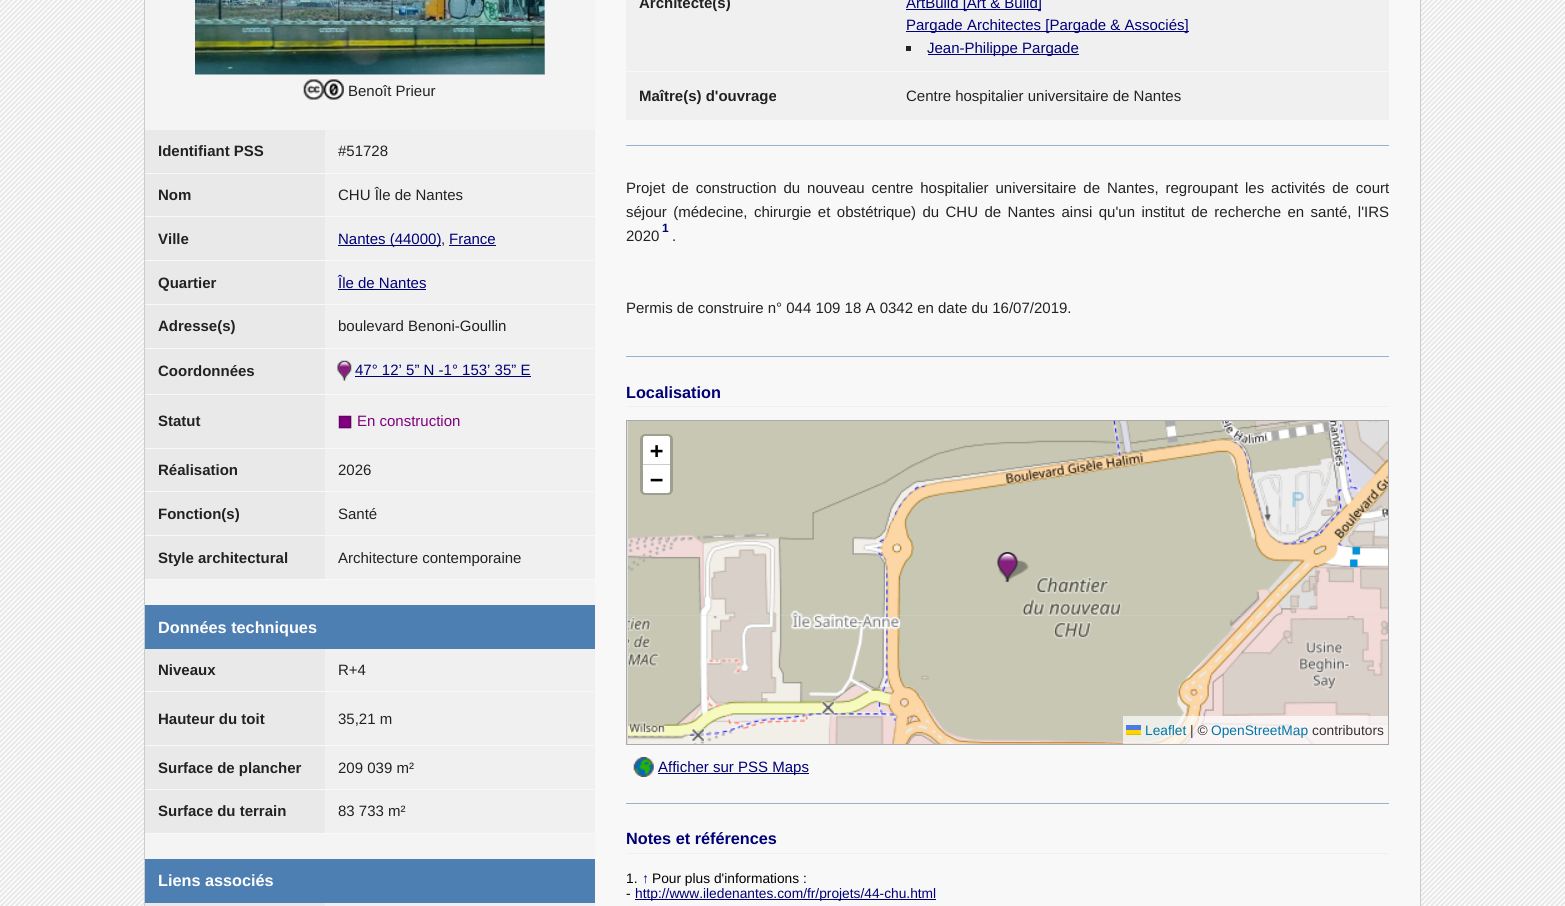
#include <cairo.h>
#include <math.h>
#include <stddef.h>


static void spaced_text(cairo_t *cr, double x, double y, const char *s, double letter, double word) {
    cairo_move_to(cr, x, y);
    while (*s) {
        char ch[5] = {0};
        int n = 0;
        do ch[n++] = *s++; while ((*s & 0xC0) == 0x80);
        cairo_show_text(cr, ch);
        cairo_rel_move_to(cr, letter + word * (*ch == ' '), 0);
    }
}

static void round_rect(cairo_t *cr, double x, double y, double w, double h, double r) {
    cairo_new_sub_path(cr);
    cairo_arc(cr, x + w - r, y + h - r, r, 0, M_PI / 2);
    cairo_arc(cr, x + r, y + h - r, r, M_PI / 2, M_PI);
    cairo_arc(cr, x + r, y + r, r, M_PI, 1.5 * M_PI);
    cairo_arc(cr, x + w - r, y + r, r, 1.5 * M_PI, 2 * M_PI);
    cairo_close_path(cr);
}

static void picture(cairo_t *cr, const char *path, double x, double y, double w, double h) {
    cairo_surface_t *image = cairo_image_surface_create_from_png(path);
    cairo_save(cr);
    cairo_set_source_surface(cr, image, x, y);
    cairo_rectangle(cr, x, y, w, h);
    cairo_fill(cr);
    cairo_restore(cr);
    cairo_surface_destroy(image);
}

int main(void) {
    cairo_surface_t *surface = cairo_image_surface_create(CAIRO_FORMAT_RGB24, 1565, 906);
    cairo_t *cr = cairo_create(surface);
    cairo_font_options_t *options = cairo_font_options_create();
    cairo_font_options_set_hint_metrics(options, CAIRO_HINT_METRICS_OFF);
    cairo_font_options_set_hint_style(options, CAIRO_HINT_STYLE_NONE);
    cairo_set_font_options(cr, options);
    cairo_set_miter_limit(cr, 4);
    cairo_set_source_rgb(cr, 1, 1, 1);
    cairo_paint(cr);
    picture(cr, "img1.png", 0, 0, 1565, 906);
    cairo_set_source_rgb(cr, 0.796, 0.796, 0.796);
    cairo_rectangle(cr, 1420, 0, 1, 906);
    cairo_fill(cr);
    cairo_rectangle(cr, 144, 0, 1, 906);
    cairo_fill(cr);
    cairo_set_source_rgb(cr, 0.969, 0.969, 0.969);
    cairo_rectangle(cr, 595, 0, 825, 906);
    cairo_fill(cr);
    cairo_set_source_rgb(cr, 0.957, 0.957, 0.957);
    cairo_rectangle(cr, 145, 0, 450, 859);
    cairo_fill(cr);
    picture(cr, "img2.png", 195, 0, 350, 75);
    picture(cr, "img3.png", 303, 79, 21, 21);
    picture(cr, "img4.png", 323, 79, 21, 21);
    cairo_select_font_face(cr, "Liberation Sans", CAIRO_FONT_SLANT_NORMAL, CAIRO_FONT_WEIGHT_NORMAL);
    cairo_set_font_size(cr, 15);
    cairo_set_source_rgb(cr, 0.133, 0.133, 0.133);
    cairo_move_to(cr, 348, 96);
    cairo_show_text(cr, "Benoît Prieur");
    cairo_set_source_rgb(cr, 0.914, 0.914, 0.914);
    cairo_rectangle(cr, 145, 130, 180, 43);
    cairo_fill(cr);
    cairo_set_source_rgb(cr, 0.969, 0.969, 0.969);
    cairo_rectangle(cr, 145, 173, 450, 1);
    cairo_fill(cr);
    cairo_select_font_face(cr, "Liberation Sans", CAIRO_FONT_SLANT_NORMAL, CAIRO_FONT_WEIGHT_BOLD);
    cairo_set_source_rgb(cr, 0.133, 0.133, 0.133);
    cairo_move_to(cr, 158, 156);
    cairo_show_text(cr, "Identifiant PSS");
    cairo_set_source_rgb(cr, 0.941, 0.941, 0.941);
    cairo_rectangle(cr, 325, 130, 270, 43);
    cairo_fill(cr);
    cairo_select_font_face(cr, "Liberation Sans", CAIRO_FONT_SLANT_NORMAL, CAIRO_FONT_WEIGHT_NORMAL);
    cairo_set_source_rgb(cr, 0.133, 0.133, 0.133);
    cairo_move_to(cr, 338, 156);
    cairo_show_text(cr, "#51728");
    cairo_set_source_rgb(cr, 0.914, 0.914, 0.914);
    cairo_rectangle(cr, 145, 174, 180, 86);
    cairo_fill(cr);
    cairo_set_source_rgb(cr, 0.969, 0.969, 0.969);
    cairo_rectangle(cr, 145, 216, 180, 1);
    cairo_fill(cr);
    cairo_select_font_face(cr, "Liberation Sans", CAIRO_FONT_SLANT_NORMAL, CAIRO_FONT_WEIGHT_BOLD);
    cairo_set_source_rgb(cr, 0.133, 0.133, 0.133);
    cairo_move_to(cr, 158, 200);
    cairo_show_text(cr, "Nom");
    cairo_set_source_rgb(cr, 0.941, 0.941, 0.941);
    cairo_rectangle(cr, 325, 174, 270, 86);
    cairo_fill(cr);
    cairo_set_source_rgb(cr, 0.969, 0.969, 0.969);
    cairo_rectangle(cr, 325, 216, 270, 1);
    cairo_fill(cr);
    cairo_select_font_face(cr, "Liberation Sans", CAIRO_FONT_SLANT_NORMAL, CAIRO_FONT_WEIGHT_NORMAL);
    cairo_set_source_rgb(cr, 0.133, 0.133, 0.133);
    cairo_move_to(cr, 338, 200);
    cairo_show_text(cr, "CHU Île de Nantes");
    cairo_set_source_rgb(cr, 0.969, 0.969, 0.969);
    cairo_rectangle(cr, 145, 260, 450, 1);
    cairo_fill(cr);
    cairo_select_font_face(cr, "Liberation Sans", CAIRO_FONT_SLANT_NORMAL, CAIRO_FONT_WEIGHT_BOLD);
    cairo_set_source_rgb(cr, 0.133, 0.133, 0.133);
    cairo_move_to(cr, 158, 244);
    cairo_show_text(cr, "Ville");
    cairo_set_source_rgb(cr, 0, 0, 0.467);
    cairo_rectangle(cr, 338, 245, 103, 1);
    cairo_fill(cr);
    cairo_select_font_face(cr, "Liberation Sans", CAIRO_FONT_SLANT_NORMAL, CAIRO_FONT_WEIGHT_NORMAL);
    cairo_move_to(cr, 338, 244);
    cairo_show_text(cr, "Nantes (44000)");
    cairo_set_source_rgb(cr, 0.133, 0.133, 0.133);
    cairo_move_to(cr, 441, 244);
    cairo_show_text(cr, ",");
    cairo_set_source_rgb(cr, 0, 0, 0.467);
    cairo_move_to(cr, 449, 244);
    cairo_show_text(cr, "France");
    cairo_rectangle(cr, 449, 245, 47, 1);
    cairo_fill(cr);
    cairo_set_source_rgb(cr, 0.914, 0.914, 0.914);
    cairo_rectangle(cr, 145, 261, 180, 43);
    cairo_fill(cr);
    cairo_set_source_rgb(cr, 0.969, 0.969, 0.969);
    cairo_rectangle(cr, 145, 304, 450, 1);
    cairo_fill(cr);
    cairo_select_font_face(cr, "Liberation Sans", CAIRO_FONT_SLANT_NORMAL, CAIRO_FONT_WEIGHT_BOLD);
    cairo_set_source_rgb(cr, 0.133, 0.133, 0.133);
    cairo_move_to(cr, 158, 288);
    cairo_show_text(cr, "Quartier");
    cairo_set_source_rgb(cr, 0.941, 0.941, 0.941);
    cairo_rectangle(cr, 325, 261, 270, 43);
    cairo_fill(cr);
    cairo_select_font_face(cr, "Liberation Sans", CAIRO_FONT_SLANT_NORMAL, CAIRO_FONT_WEIGHT_NORMAL);
    cairo_set_source_rgb(cr, 0, 0, 0.467);
    cairo_move_to(cr, 338, 288);
    cairo_show_text(cr, "Île de Nantes");
    cairo_rectangle(cr, 338, 289, 88, 1);
    cairo_fill(cr);
    cairo_set_source_rgb(cr, 0.914, 0.914, 0.914);
    cairo_rectangle(cr, 145, 305, 180, 43);
    cairo_fill(cr);
    cairo_set_source_rgb(cr, 0.969, 0.969, 0.969);
    cairo_rectangle(cr, 145, 348, 450, 1);
    cairo_fill(cr);
    cairo_select_font_face(cr, "Liberation Sans", CAIRO_FONT_SLANT_NORMAL, CAIRO_FONT_WEIGHT_BOLD);
    cairo_set_source_rgb(cr, 0.133, 0.133, 0.133);
    cairo_move_to(cr, 158, 331);
    cairo_show_text(cr, "Adresse(s)");
    cairo_set_source_rgb(cr, 0.941, 0.941, 0.941);
    cairo_rectangle(cr, 325, 305, 270, 43);
    cairo_fill(cr);
    cairo_select_font_face(cr, "Liberation Sans", CAIRO_FONT_SLANT_NORMAL, CAIRO_FONT_WEIGHT_NORMAL);
    cairo_set_source_rgb(cr, 0.133, 0.133, 0.133);
    cairo_move_to(cr, 338, 331);
    cairo_show_text(cr, "boulevard Benoni-Goullin");
    cairo_set_source_rgb(cr, 0.914, 0.914, 0.914);
    cairo_rectangle(cr, 145, 349, 180, 45);
    cairo_fill(cr);
    cairo_set_source_rgb(cr, 0.969, 0.969, 0.969);
    cairo_rectangle(cr, 145, 394, 450, 1);
    cairo_fill(cr);
    cairo_select_font_face(cr, "Liberation Sans", CAIRO_FONT_SLANT_NORMAL, CAIRO_FONT_WEIGHT_BOLD);
    cairo_set_source_rgb(cr, 0.133, 0.133, 0.133);
    cairo_move_to(cr, 158, 376);
    cairo_show_text(cr, "Coordonnées");
    cairo_set_source_rgb(cr, 0.941, 0.941, 0.941);
    cairo_rectangle(cr, 325, 349, 270, 45);
    cairo_fill(cr);
    picture(cr, "img5.png", 337, 360, 15, 21);
    cairo_select_font_face(cr, "Liberation Sans", CAIRO_FONT_SLANT_NORMAL, CAIRO_FONT_WEIGHT_NORMAL);
    cairo_set_source_rgb(cr, 0, 0, 0.467);
    cairo_move_to(cr, 355, 375);
    cairo_show_text(cr, "47° 12’ 5” N -1° 153’ 35” E");
    cairo_rectangle(cr, 355, 376, 176, 1);
    cairo_fill(cr);
    cairo_set_source_rgb(cr, 0.914, 0.914, 0.914);
    cairo_rectangle(cr, 145, 395, 180, 53);
    cairo_fill(cr);
    cairo_set_source_rgb(cr, 0.969, 0.969, 0.969);
    cairo_rectangle(cr, 145, 448, 450, 1);
    cairo_fill(cr);
    cairo_select_font_face(cr, "Liberation Sans", CAIRO_FONT_SLANT_NORMAL, CAIRO_FONT_WEIGHT_BOLD);
    cairo_set_source_rgb(cr, 0.133, 0.133, 0.133);
    cairo_move_to(cr, 158, 426);
    cairo_show_text(cr, "Statut");
    cairo_set_source_rgb(cr, 0.941, 0.941, 0.941);
    cairo_rectangle(cr, 325, 395, 270, 53);
    cairo_fill(cr);
    picture(cr, "img6.png", 338, 415, 14, 14);
    cairo_select_font_face(cr, "Liberation Sans", CAIRO_FONT_SLANT_NORMAL, CAIRO_FONT_WEIGHT_NORMAL);
    cairo_set_source_rgb(cr, 0.502, 0, 0.502);
    cairo_move_to(cr, 357, 426);
    cairo_show_text(cr, "En construction");
    cairo_set_source_rgb(cr, 0.914, 0.914, 0.914);
    cairo_rectangle(cr, 145, 449, 180, 86);
    cairo_fill(cr);
    cairo_set_source_rgb(cr, 0.969, 0.969, 0.969);
    cairo_rectangle(cr, 145, 491, 180, 1);
    cairo_fill(cr);
    cairo_select_font_face(cr, "Liberation Sans", CAIRO_FONT_SLANT_NORMAL, CAIRO_FONT_WEIGHT_BOLD);
    cairo_set_source_rgb(cr, 0.133, 0.133, 0.133);
    cairo_move_to(cr, 158, 475);
    cairo_show_text(cr, "Réalisation");
    cairo_set_source_rgb(cr, 0.941, 0.941, 0.941);
    cairo_rectangle(cr, 325, 449, 270, 86);
    cairo_fill(cr);
    cairo_set_source_rgb(cr, 0.969, 0.969, 0.969);
    cairo_rectangle(cr, 325, 491, 270, 1);
    cairo_fill(cr);
    cairo_select_font_face(cr, "Liberation Sans", CAIRO_FONT_SLANT_NORMAL, CAIRO_FONT_WEIGHT_NORMAL);
    cairo_set_source_rgb(cr, 0.133, 0.133, 0.133);
    cairo_move_to(cr, 338, 475);
    cairo_show_text(cr, "2026");
    cairo_set_source_rgb(cr, 0.969, 0.969, 0.969);
    cairo_rectangle(cr, 145, 535, 450, 1);
    cairo_fill(cr);
    cairo_select_font_face(cr, "Liberation Sans", CAIRO_FONT_SLANT_NORMAL, CAIRO_FONT_WEIGHT_BOLD);
    cairo_set_source_rgb(cr, 0.133, 0.133, 0.133);
    cairo_move_to(cr, 158, 519);
    cairo_show_text(cr, "Fonction(s)");
    cairo_select_font_face(cr, "Liberation Sans", CAIRO_FONT_SLANT_NORMAL, CAIRO_FONT_WEIGHT_NORMAL);
    cairo_move_to(cr, 338, 519);
    cairo_show_text(cr, "Santé");
    cairo_set_source_rgb(cr, 0.914, 0.914, 0.914);
    cairo_rectangle(cr, 145, 536, 180, 43);
    cairo_fill(cr);
    cairo_set_source_rgb(cr, 0.969, 0.969, 0.969);
    cairo_rectangle(cr, 145, 579, 450, 1);
    cairo_fill(cr);
    cairo_select_font_face(cr, "Liberation Sans", CAIRO_FONT_SLANT_NORMAL, CAIRO_FONT_WEIGHT_BOLD);
    cairo_set_source_rgb(cr, 0.133, 0.133, 0.133);
    cairo_move_to(cr, 158, 563);
    cairo_show_text(cr, "Style architectural");
    cairo_set_source_rgb(cr, 0.941, 0.941, 0.941);
    cairo_rectangle(cr, 325, 536, 270, 43);
    cairo_fill(cr);
    cairo_select_font_face(cr, "Liberation Sans", CAIRO_FONT_SLANT_NORMAL, CAIRO_FONT_WEIGHT_NORMAL);
    cairo_set_source_rgb(cr, 0.133, 0.133, 0.133);
    cairo_move_to(cr, 338, 563);
    cairo_show_text(cr, "Architecture contemporaine");
    cairo_set_source_rgb(cr, 0.306, 0.498, 0.698);
    cairo_rectangle(cr, 145, 605, 450, 44);
    cairo_fill(cr);
    cairo_select_font_face(cr, "Liberation Sans", CAIRO_FONT_SLANT_NORMAL, CAIRO_FONT_WEIGHT_BOLD);
    cairo_set_font_size(cr, 16.25);
    cairo_set_source_rgb(cr, 1, 1, 1);
    cairo_move_to(cr, 158, 633);
    cairo_show_text(cr, "Données techniques");
    cairo_set_source_rgb(cr, 0.914, 0.914, 0.914);
    cairo_rectangle(cr, 145, 649, 180, 96);
    cairo_fill(cr);
    cairo_set_source_rgb(cr, 0.969, 0.969, 0.969);
    cairo_rectangle(cr, 145, 691, 180, 1);
    cairo_fill(cr);
    cairo_set_font_size(cr, 15);
    cairo_set_source_rgb(cr, 0.133, 0.133, 0.133);
    cairo_move_to(cr, 158, 675);
    cairo_show_text(cr, "Niveaux");
    cairo_set_source_rgb(cr, 0.941, 0.941, 0.941);
    cairo_rectangle(cr, 325, 649, 270, 96);
    cairo_fill(cr);
    cairo_set_source_rgb(cr, 0.969, 0.969, 0.969);
    cairo_rectangle(cr, 325, 691, 270, 1);
    cairo_fill(cr);
    cairo_select_font_face(cr, "Liberation Sans", CAIRO_FONT_SLANT_NORMAL, CAIRO_FONT_WEIGHT_NORMAL);
    cairo_set_source_rgb(cr, 0.133, 0.133, 0.133);
    cairo_move_to(cr, 338, 675);
    cairo_show_text(cr, "R+4");
    cairo_set_source_rgb(cr, 0.969, 0.969, 0.969);
    cairo_rectangle(cr, 145, 745, 450, 1);
    cairo_fill(cr);
    cairo_select_font_face(cr, "Liberation Sans", CAIRO_FONT_SLANT_NORMAL, CAIRO_FONT_WEIGHT_BOLD);
    cairo_set_source_rgb(cr, 0.133, 0.133, 0.133);
    cairo_move_to(cr, 158, 724);
    cairo_show_text(cr, "Hauteur du toit");
    cairo_select_font_face(cr, "Liberation Sans", CAIRO_FONT_SLANT_NORMAL, CAIRO_FONT_WEIGHT_NORMAL);
    cairo_move_to(cr, 338, 724);
    cairo_show_text(cr, "35,21 m");
    cairo_set_source_rgb(cr, 0.914, 0.914, 0.914);
    cairo_rectangle(cr, 145, 746, 180, 43);
    cairo_fill(cr);
    cairo_set_source_rgb(cr, 0.969, 0.969, 0.969);
    cairo_rectangle(cr, 145, 789, 450, 1);
    cairo_fill(cr);
    cairo_select_font_face(cr, "Liberation Sans", CAIRO_FONT_SLANT_NORMAL, CAIRO_FONT_WEIGHT_BOLD);
    cairo_set_source_rgb(cr, 0.133, 0.133, 0.133);
    cairo_move_to(cr, 158, 773);
    cairo_show_text(cr, "Surface de plancher");
    cairo_set_source_rgb(cr, 0.941, 0.941, 0.941);
    cairo_rectangle(cr, 325, 746, 270, 43);
    cairo_fill(cr);
    cairo_select_font_face(cr, "Liberation Sans", CAIRO_FONT_SLANT_NORMAL, CAIRO_FONT_WEIGHT_NORMAL);
    cairo_set_source_rgb(cr, 0.133, 0.133, 0.133);
    cairo_move_to(cr, 338, 773);
    cairo_show_text(cr, "209 039 m²");
    cairo_set_source_rgb(cr, 0.914, 0.914, 0.914);
    cairo_rectangle(cr, 145, 790, 180, 43);
    cairo_fill(cr);
    cairo_set_source_rgb(cr, 0.969, 0.969, 0.969);
    cairo_rectangle(cr, 145, 833, 450, 1);
    cairo_fill(cr);
    cairo_select_font_face(cr, "Liberation Sans", CAIRO_FONT_SLANT_NORMAL, CAIRO_FONT_WEIGHT_BOLD);
    cairo_set_source_rgb(cr, 0.133, 0.133, 0.133);
    cairo_move_to(cr, 158, 816);
    cairo_show_text(cr, "Surface du terrain");
    cairo_set_source_rgb(cr, 0.941, 0.941, 0.941);
    cairo_rectangle(cr, 325, 790, 270, 43);
    cairo_fill(cr);
    cairo_select_font_face(cr, "Liberation Sans", CAIRO_FONT_SLANT_NORMAL, CAIRO_FONT_WEIGHT_NORMAL);
    cairo_set_source_rgb(cr, 0.133, 0.133, 0.133);
    cairo_move_to(cr, 338, 816);
    cairo_show_text(cr, "83 733 m²");
    cairo_set_source_rgb(cr, 0.306, 0.498, 0.698);
    cairo_rectangle(cr, 145, 859, 450, 44);
    cairo_fill(cr);
    cairo_select_font_face(cr, "Liberation Sans", CAIRO_FONT_SLANT_NORMAL, CAIRO_FONT_WEIGHT_BOLD);
    cairo_set_font_size(cr, 16.25);
    cairo_set_source_rgb(cr, 1, 1, 1);
    cairo_move_to(cr, 158, 886);
    cairo_show_text(cr, "Liens associés");
    cairo_set_source_rgb(cr, 0.914, 0.914, 0.914);
    cairo_rectangle(cr, 145, 903, 180, 3);
    cairo_fill(cr);
    cairo_set_source_rgb(cr, 0.941, 0.941, 0.941);
    cairo_rectangle(cr, 325, 903, 270, 3);
    cairo_fill(cr);
    cairo_rectangle(cr, 626, 0, 763, 73);
    cairo_fill(cr);
    cairo_set_font_size(cr, 15);
    cairo_set_source_rgb(cr, 0.133, 0.133, 0.133);
    cairo_move_to(cr, 639, 8);
    cairo_show_text(cr, "Architecte(s)");
    cairo_set_source_rgb(cr, 0.969, 0.969, 0.969);
    cairo_rectangle(cr, 626, 71, 764, 1);
    cairo_fill(cr);
    cairo_set_source_rgb(cr, 0, 0, 0.467);
    cairo_rectangle(cr, 906, 9, 135, 1);
    cairo_fill(cr);
    cairo_select_font_face(cr, "Liberation Sans", CAIRO_FONT_SLANT_NORMAL, CAIRO_FONT_WEIGHT_NORMAL);
    cairo_move_to(cr, 906, 8);
    cairo_show_text(cr, "ArtBuild [Art & Build]");
    cairo_rectangle(cr, 906, 31, 283, 1);
    cairo_fill(cr);
    cairo_move_to(cr, 906, 30);
    cairo_show_text(cr, "Pargade Architectes [Pargade & Associés]");
    cairo_set_source_rgb(cr, 0.133, 0.133, 0.133);
    cairo_rectangle(cr, 906, 46, 5, 5);
    cairo_fill(cr);
    cairo_set_source_rgb(cr, 0, 0, 0.467);
    cairo_rectangle(cr, 928, 54, 151, 1);
    cairo_fill(cr);
    cairo_move_to(cr, 927, 53);
    cairo_show_text(cr, "Jean-Philippe Pargade");
    cairo_set_source_rgb(cr, 0.941, 0.941, 0.941);
    cairo_rectangle(cr, 626, 73, 763, 47);
    cairo_fill(cr);
    cairo_select_font_face(cr, "Liberation Sans", CAIRO_FONT_SLANT_NORMAL, CAIRO_FONT_WEIGHT_BOLD);
    cairo_set_source_rgb(cr, 0.133, 0.133, 0.133);
    cairo_move_to(cr, 639, 101);
    cairo_show_text(cr, "Maître(s) d'ouvrage");
    cairo_select_font_face(cr, "Liberation Sans", CAIRO_FONT_SLANT_NORMAL, CAIRO_FONT_WEIGHT_NORMAL);
    cairo_move_to(cr, 906, 101);
    cairo_show_text(cr, "Centre hospitalier universitaire de Nantes");
    cairo_set_source_rgb(cr, 0.584, 0.698, 0.82);
    cairo_rectangle(cr, 626, 145, 763, 1);
    cairo_fill(cr);
    cairo_set_source_rgb(cr, 0.133, 0.133, 0.133);
    spaced_text(cr, 626, 193, "Projet de construction du nouveau centre hospitalier universitaire de Nantes, regroupant les activités de court", 0, 2.75);
    spaced_text(cr, 626, 217, "séjour (médecine, chirurgie et obstétrique) du CHU de Nantes ainsi qu'un institut de recherche en santé, l'IRS", 0, 2.25);
    cairo_select_font_face(cr, "Liberation Sans", CAIRO_FONT_SLANT_NORMAL, CAIRO_FONT_WEIGHT_BOLD);
    cairo_set_font_size(cr, 12);
    cairo_set_source_rgb(cr, 0, 0, 0.467);
    cairo_move_to(cr, 662, 232);
    cairo_show_text(cr, "1");
    cairo_select_font_face(cr, "Liberation Sans", CAIRO_FONT_SLANT_NORMAL, CAIRO_FONT_WEIGHT_NORMAL);
    cairo_set_font_size(cr, 15);
    cairo_set_source_rgb(cr, 0.133, 0.133, 0.133);
    cairo_move_to(cr, 626, 241);
    cairo_show_text(cr, "2020");
    cairo_move_to(cr, 672, 241);
    cairo_show_text(cr, ".");
    cairo_move_to(cr, 626, 313);
    cairo_show_text(cr, "Permis de construire n° 044 109 18 A 0342 en date du 16/07/2019.");
    cairo_set_source_rgb(cr, 0.584, 0.698, 0.82);
    cairo_rectangle(cr, 626, 356, 763, 1);
    cairo_fill(cr);
    cairo_set_source_rgb(cr, 0.941, 0.941, 0.941);
    cairo_rectangle(cr, 626, 406, 763, 1);
    cairo_fill(cr);
    cairo_select_font_face(cr, "Liberation Sans", CAIRO_FONT_SLANT_NORMAL, CAIRO_FONT_WEIGHT_BOLD);
    cairo_set_font_size(cr, 16.25);
    cairo_set_source_rgb(cr, 0, 0, 0.467);
    cairo_move_to(cr, 626, 398);
    cairo_show_text(cr, "Localisation");
    cairo_set_source_rgb(cr, 0.867, 0.867, 0.867);
    cairo_rectangle(cr, 626.5, 420.5, 762, 324);
    cairo_fill_preserve(cr);
    cairo_set_source_rgb(cr, 0.667, 0.667, 0.667);
    cairo_set_line_width(cr, 1);
    cairo_stroke(cr);
    picture(cr, "img7.png", 628, 421, 42, 195);
    picture(cr, "img8.png", 670, 421, 320, 195);
    picture(cr, "img9.png", 990, 421, 320, 195);
    picture(cr, "img10.png", 1310, 421, 78, 195);
    picture(cr, "img11.png", 628, 616, 42, 128);
    picture(cr, "img12.png", 670, 616, 320, 128);
    picture(cr, "img13.png", 990, 616, 320, 128);
    picture(cr, "img14.png", 1310, 616, 78, 128);
    picture(cr, "img16.png", 998, 560, 31, 22);
    picture(cr, "img15.png", 997, 552, 21, 30);
    round_rect(cr, 641.5, 435.5, 30, 58, 3.5);
    cairo_set_source_rgb(cr, 0.624, 0.624, 0.565);
    cairo_set_line_width(cr, 3);
    cairo_stroke(cr);
    cairo_set_source_rgb(cr, 1, 1, 1);
    cairo_new_path(cr);
    cairo_move_to(cr, 645.5, 436);
    cairo_line_to(cr, 667.5, 436);
    cairo_curve_to(cr, 669, 436, 670, 437, 670, 438.5);
    cairo_line_to(cr, 670, 465);
    cairo_line_to(cr, 643, 465);
    cairo_line_to(cr, 643, 438.5);
    cairo_curve_to(cr, 643, 437, 644, 436, 645.5, 436);
    cairo_close_path(cr);
    cairo_fill(cr);
    cairo_set_source_rgb(cr, 0.8, 0.8, 0.8);
    cairo_rectangle(cr, 643, 464, 27, 1);
    cairo_fill(cr);
    cairo_select_font_face(cr, "DejaVu Sans Mono", CAIRO_FONT_SLANT_NORMAL, CAIRO_FONT_WEIGHT_BOLD);
    cairo_set_font_size(cr, 22);
    cairo_set_source_rgb(cr, 0, 0, 0);
    cairo_move_to(cr, 650, 458);
    cairo_show_text(cr, "+");
    cairo_set_source_rgb(cr, 1, 1, 1);
    cairo_new_path(cr);
    cairo_move_to(cr, 643, 465);
    cairo_line_to(cr, 670, 465);
    cairo_line_to(cr, 670, 490.5);
    cairo_curve_to(cr, 670, 492, 669, 493, 667.5, 493);
    cairo_line_to(cr, 645.5, 493);
    cairo_curve_to(cr, 644, 493, 643, 492, 643, 490.5);
    cairo_close_path(cr);
    cairo_fill(cr);
    cairo_set_source_rgb(cr, 0, 0, 0);
    cairo_move_to(cr, 650, 487);
    cairo_show_text(cr, "−");
    cairo_set_source_rgba(cr, 1, 1, 1, 0.7);
    cairo_rectangle(cr, 1123, 716, 265, 28);
    cairo_fill(cr);
    cairo_select_font_face(cr, "Liberation Sans", CAIRO_FONT_SLANT_NORMAL, CAIRO_FONT_WEIGHT_NORMAL);
    cairo_set_font_size(cr, 13.75);
    cairo_set_source_rgb(cr, 0, 0.471, 0.659);
    cairo_move_to(cr, 1145, 735);
    cairo_show_text(cr, "Leaflet");
    cairo_set_source_rgb(cr, 0.298, 0.482, 0.882);
    cairo_rectangle(cr, 1126, 725, 15, 5);
    cairo_fill(cr);
    cairo_set_source_rgb(cr, 1, 0.835, 0);
    cairo_rectangle(cr, 1126, 730, 15, 4);
    cairo_fill(cr);
    cairo_set_source_rgb(cr, 0.878, 0.737, 0);
    cairo_rectangle(cr, 1126, 734, 15, 1);
    cairo_fill(cr);
    cairo_set_source_rgb(cr, 0.2, 0.2, 0.2);
    cairo_move_to(cr, 1190, 735);
    cairo_show_text(cr, "| ©");
    cairo_set_source_rgb(cr, 0, 0.471, 0.659);
    cairo_move_to(cr, 1211, 735);
    cairo_show_text(cr, "OpenStreetMap");
    cairo_set_source_rgb(cr, 0.2, 0.2, 0.2);
    cairo_move_to(cr, 1312, 735);
    cairo_show_text(cr, "contributors");
    picture(cr, "img17.png", 633, 757, 21, 20);
    cairo_set_source_rgb(cr, 0, 0, 0.467);
    cairo_rectangle(cr, 658, 773, 151, 1);
    cairo_fill(cr);
    cairo_set_font_size(cr, 15);
    cairo_move_to(cr, 658, 772);
    cairo_show_text(cr, "Afficher sur PSS Maps");
    cairo_set_source_rgb(cr, 0.584, 0.698, 0.82);
    cairo_rectangle(cr, 626, 803, 763, 1);
    cairo_fill(cr);
    cairo_set_source_rgb(cr, 0.941, 0.941, 0.941);
    cairo_rectangle(cr, 626, 853, 763, 1);
    cairo_fill(cr);
    cairo_select_font_face(cr, "Liberation Sans", CAIRO_FONT_SLANT_NORMAL, CAIRO_FONT_WEIGHT_BOLD);
    cairo_set_font_size(cr, 16.25);
    cairo_set_source_rgb(cr, 0, 0, 0.467);
    cairo_move_to(cr, 626, 844);
    cairo_show_text(cr, "Notes et références");
    cairo_select_font_face(cr, "Liberation Sans", CAIRO_FONT_SLANT_NORMAL, CAIRO_FONT_WEIGHT_NORMAL);
    cairo_set_font_size(cr, 13.75);
    cairo_set_source_rgb(cr, 0, 0, 0);
    cairo_move_to(cr, 626, 883);
    cairo_show_text(cr, "1.");
    cairo_set_source_rgb(cr, 0, 0, 0.467);
    cairo_move_to(cr, 642, 883);
    cairo_show_text(cr, "↑");
    cairo_set_source_rgb(cr, 0, 0, 0);
    cairo_move_to(cr, 652, 883);
    cairo_show_text(cr, "Pour plus d'informations :");
    cairo_move_to(cr, 626, 898);
    cairo_show_text(cr, "-");
    cairo_set_source_rgb(cr, 0, 0, 0.467);
    cairo_rectangle(cr, 635, 899, 301, 1);
    cairo_fill(cr);
    cairo_move_to(cr, 635, 898);
    cairo_show_text(cr, "http://www.iledenantes.com/fr/projets/44-chu.html");
    cairo_surface_write_to_png(surface, "page.png");
    cairo_font_options_destroy(options);
    cairo_destroy(cr);
    cairo_surface_destroy(surface);
    return 0;
}
